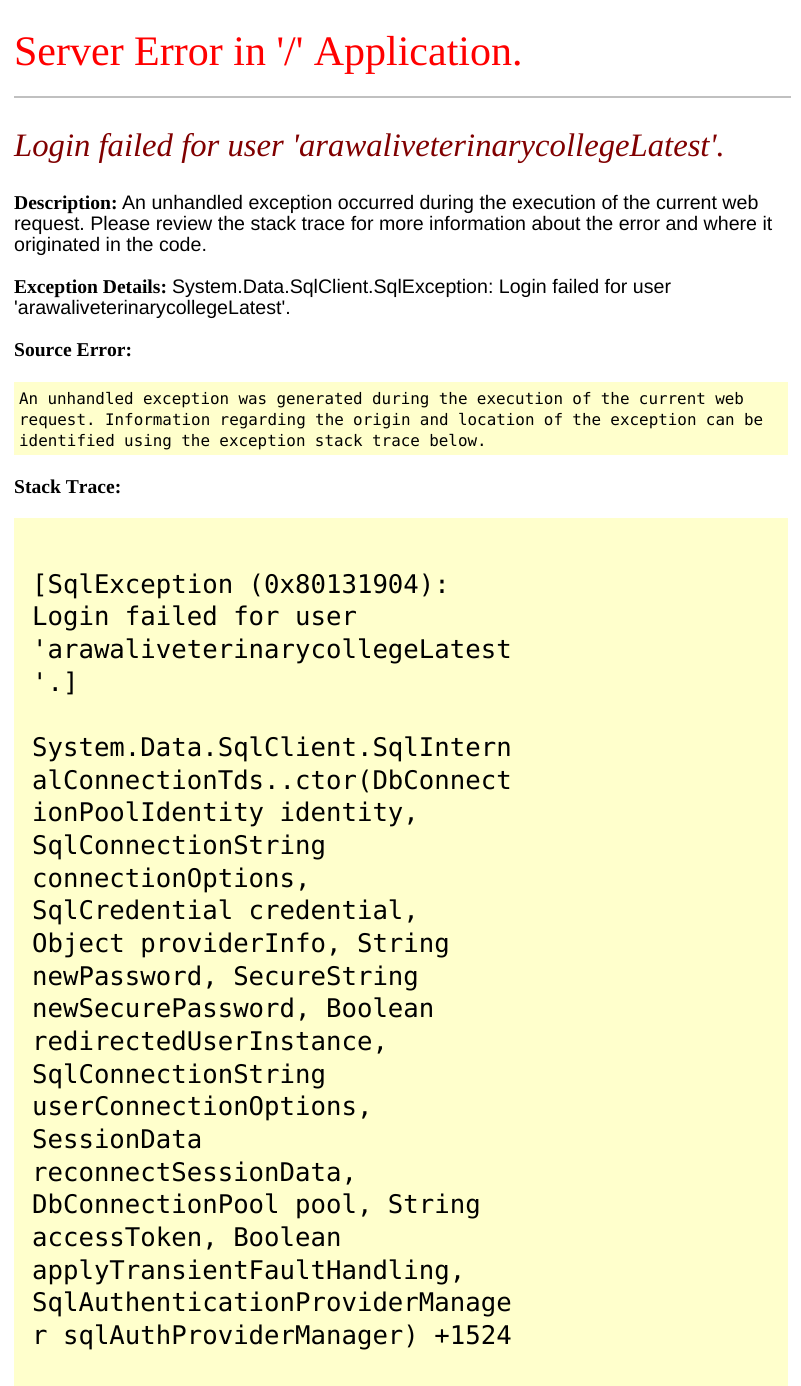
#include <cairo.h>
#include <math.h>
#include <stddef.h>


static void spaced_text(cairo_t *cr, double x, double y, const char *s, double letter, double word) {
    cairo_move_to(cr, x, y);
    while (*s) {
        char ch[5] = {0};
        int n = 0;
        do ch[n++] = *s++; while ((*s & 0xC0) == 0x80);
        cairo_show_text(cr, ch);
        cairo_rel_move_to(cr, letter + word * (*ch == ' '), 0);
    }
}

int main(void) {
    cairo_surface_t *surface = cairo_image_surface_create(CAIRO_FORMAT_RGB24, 801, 1386);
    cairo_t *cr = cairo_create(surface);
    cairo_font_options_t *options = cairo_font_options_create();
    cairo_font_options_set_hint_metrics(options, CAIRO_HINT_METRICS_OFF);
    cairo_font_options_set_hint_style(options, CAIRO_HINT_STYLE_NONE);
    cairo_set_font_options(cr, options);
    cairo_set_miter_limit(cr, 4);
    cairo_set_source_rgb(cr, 1, 1, 1);
    cairo_paint(cr);
    cairo_select_font_face(cr, "Liberation Serif", CAIRO_FONT_SLANT_NORMAL, CAIRO_FONT_WEIGHT_NORMAL);
    cairo_set_font_size(cr, 42);
    cairo_set_source_rgb(cr, 1, 0, 0);
    cairo_move_to(cr, 14, 65);
    cairo_show_text(cr, "Server Error in '/' Application.");
    cairo_set_source_rgb(cr, 0.753, 0.753, 0.753);
    cairo_rectangle(cr, 14, 96, 777, 2);
    cairo_fill(cr);
    cairo_select_font_face(cr, "Liberation Serif", CAIRO_FONT_SLANT_ITALIC, CAIRO_FONT_WEIGHT_NORMAL);
    cairo_set_font_size(cr, 32.7);
    cairo_set_source_rgb(cr, 0.502, 0, 0);
    cairo_move_to(cr, 14, 156);
    cairo_show_text(cr, "Login failed for user 'arawaliveterinarycollegeLatest'.");
    cairo_select_font_face(cr, "Liberation Serif", CAIRO_FONT_SLANT_NORMAL, CAIRO_FONT_WEIGHT_BOLD);
    cairo_set_font_size(cr, 19.6);
    cairo_set_source_rgb(cr, 0, 0, 0);
    cairo_move_to(cr, 14, 209);
    cairo_show_text(cr, "Description:");
    cairo_select_font_face(cr, "Liberation Sans", CAIRO_FONT_SLANT_NORMAL, CAIRO_FONT_WEIGHT_NORMAL);
    cairo_move_to(cr, 122, 209);
    cairo_show_text(cr, "An unhandled exception occurred during the execution of the current web");
    cairo_move_to(cr, 14, 230);
    cairo_show_text(cr, "request. Please review the stack trace for more information about the error and where it");
    cairo_move_to(cr, 14, 251);
    cairo_show_text(cr, "originated in the code.");
    cairo_select_font_face(cr, "Liberation Serif", CAIRO_FONT_SLANT_NORMAL, CAIRO_FONT_WEIGHT_BOLD);
    cairo_move_to(cr, 14, 293);
    cairo_show_text(cr, "Exception Details:");
    cairo_select_font_face(cr, "Liberation Sans", CAIRO_FONT_SLANT_NORMAL, CAIRO_FONT_WEIGHT_NORMAL);
    cairo_move_to(cr, 172, 293);
    cairo_show_text(cr, "System.Data.SqlClient.SqlException: Login failed for user");
    cairo_move_to(cr, 14, 314);
    cairo_show_text(cr, "'arawaliveterinarycollegeLatest'.");
    cairo_select_font_face(cr, "Liberation Serif", CAIRO_FONT_SLANT_NORMAL, CAIRO_FONT_WEIGHT_BOLD);
    cairo_move_to(cr, 14, 356);
    cairo_show_text(cr, "Source Error:");
    cairo_set_source_rgb(cr, 1, 1, 0.8);
    cairo_rectangle(cr, 14, 382, 774, 73);
    cairo_fill(cr);
    cairo_select_font_face(cr, "DejaVu Sans Mono", CAIRO_FONT_SLANT_NORMAL, CAIRO_FONT_WEIGHT_NORMAL);
    cairo_set_font_size(cr, 15.9);
    cairo_set_source_rgb(cr, 0, 0, 0);
    spaced_text(cr, 19, 404, "An unhandled exception was generated during the execution of the current web", 0, -0.25);
    spaced_text(cr, 19, 425, "request. Information regarding the origin and location of the exception can be", 0, -0.25);
    spaced_text(cr, 19, 446, "identified using the exception stack trace below.", 0, -0.25);
    cairo_select_font_face(cr, "Liberation Serif", CAIRO_FONT_SLANT_NORMAL, CAIRO_FONT_WEIGHT_BOLD);
    cairo_set_font_size(cr, 19.6);
    cairo_move_to(cr, 14, 493);
    cairo_show_text(cr, "Stack Trace:");
    cairo_set_source_rgb(cr, 1, 1, 0.8);
    cairo_rectangle(cr, 14, 518, 774, 868);
    cairo_fill(cr);
    cairo_select_font_face(cr, "DejaVu Sans Mono", CAIRO_FONT_SLANT_NORMAL, CAIRO_FONT_WEIGHT_NORMAL);
    cairo_set_font_size(cr, 25.7);
    cairo_set_source_rgb(cr, 0, 0, 0);
    cairo_move_to(cr, 32, 593);
    cairo_show_text(cr, "[SqlException (0x80131904):");
    cairo_move_to(cr, 32, 625);
    cairo_show_text(cr, "Login failed for user");
    cairo_move_to(cr, 32, 658);
    cairo_show_text(cr, "'arawaliveterinarycollegeLatest");
    cairo_move_to(cr, 32, 691);
    cairo_show_text(cr, "'.]");
    cairo_move_to(cr, 32, 756);
    cairo_show_text(cr, "System.Data.SqlClient.SqlIntern");
    cairo_move_to(cr, 32, 789);
    cairo_show_text(cr, "alConnectionTds..ctor(DbConnect");
    cairo_move_to(cr, 32, 821);
    cairo_show_text(cr, "ionPoolIdentity identity,");
    cairo_move_to(cr, 32, 854);
    cairo_show_text(cr, "SqlConnectionString");
    cairo_move_to(cr, 32, 887);
    cairo_show_text(cr, "connectionOptions,");
    cairo_move_to(cr, 32, 919);
    cairo_show_text(cr, "SqlCredential credential,");
    cairo_move_to(cr, 32, 952);
    cairo_show_text(cr, "Object providerInfo, String");
    cairo_move_to(cr, 32, 985);
    cairo_show_text(cr, "newPassword, SecureString");
    cairo_move_to(cr, 32, 1017);
    cairo_show_text(cr, "newSecurePassword, Boolean");
    cairo_move_to(cr, 32, 1050);
    cairo_show_text(cr, "redirectedUserInstance,");
    cairo_move_to(cr, 32, 1083);
    cairo_show_text(cr, "SqlConnectionString");
    cairo_move_to(cr, 32, 1115);
    cairo_show_text(cr, "userConnectionOptions,");
    cairo_move_to(cr, 32, 1148);
    cairo_show_text(cr, "SessionData");
    cairo_move_to(cr, 32, 1181);
    cairo_show_text(cr, "reconnectSessionData,");
    cairo_move_to(cr, 32, 1213);
    cairo_show_text(cr, "DbConnectionPool pool, String");
    cairo_move_to(cr, 32, 1246);
    cairo_show_text(cr, "accessToken, Boolean");
    cairo_move_to(cr, 32, 1279);
    cairo_show_text(cr, "applyTransientFaultHandling,");
    cairo_move_to(cr, 32, 1311);
    cairo_show_text(cr, "SqlAuthenticationProviderManage");
    cairo_move_to(cr, 32, 1344);
    cairo_show_text(cr, "r sqlAuthProviderManager) +1524");
    cairo_surface_write_to_png(surface, "page.png");
    cairo_font_options_destroy(options);
    cairo_destroy(cr);
    cairo_surface_destroy(surface);
    return 0;
}
